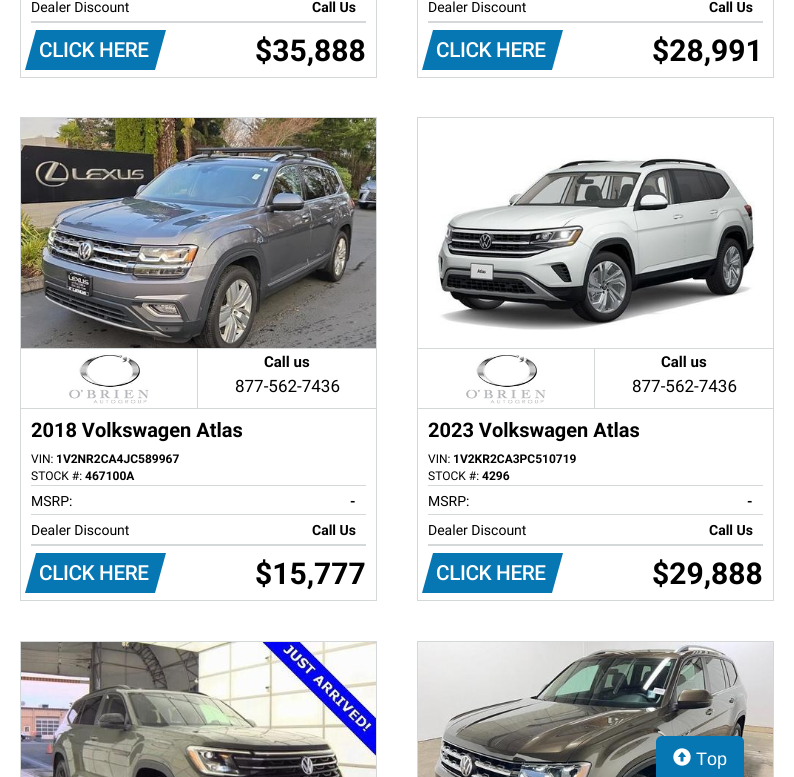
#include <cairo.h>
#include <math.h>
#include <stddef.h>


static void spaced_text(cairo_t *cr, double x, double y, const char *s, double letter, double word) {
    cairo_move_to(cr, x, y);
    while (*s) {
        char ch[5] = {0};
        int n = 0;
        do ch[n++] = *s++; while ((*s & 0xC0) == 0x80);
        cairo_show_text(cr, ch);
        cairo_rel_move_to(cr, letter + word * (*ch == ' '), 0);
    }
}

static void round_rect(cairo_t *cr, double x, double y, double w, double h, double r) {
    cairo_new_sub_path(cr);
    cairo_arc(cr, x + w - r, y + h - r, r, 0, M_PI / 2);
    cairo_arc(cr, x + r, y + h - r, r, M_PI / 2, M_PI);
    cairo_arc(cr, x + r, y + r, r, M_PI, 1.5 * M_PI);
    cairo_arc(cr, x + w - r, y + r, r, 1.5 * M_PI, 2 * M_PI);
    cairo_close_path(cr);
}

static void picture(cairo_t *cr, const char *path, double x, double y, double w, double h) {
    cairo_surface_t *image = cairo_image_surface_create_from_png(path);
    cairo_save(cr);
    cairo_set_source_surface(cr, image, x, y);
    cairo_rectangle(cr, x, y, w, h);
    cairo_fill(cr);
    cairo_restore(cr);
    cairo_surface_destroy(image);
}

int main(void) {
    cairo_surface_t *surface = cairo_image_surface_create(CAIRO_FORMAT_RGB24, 794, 777);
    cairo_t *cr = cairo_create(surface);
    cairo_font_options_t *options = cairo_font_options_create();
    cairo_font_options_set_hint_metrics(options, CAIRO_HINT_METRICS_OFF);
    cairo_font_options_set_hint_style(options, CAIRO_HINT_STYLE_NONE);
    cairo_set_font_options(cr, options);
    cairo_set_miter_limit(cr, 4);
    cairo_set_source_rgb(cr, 1, 1, 1);
    cairo_paint(cr);
    cairo_rectangle(cr, 20.5, -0.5, 356, 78);
    cairo_set_source_rgb(cr, 0.831, 0.847, 0.851);
    cairo_set_line_width(cr, 1);
    cairo_stroke(cr);
    cairo_rectangle(cr, 31, 21, 335, 2);
    cairo_fill(cr);
    cairo_select_font_face(cr, "Roboto", CAIRO_FONT_SLANT_NORMAL, CAIRO_FONT_WEIGHT_NORMAL);
    cairo_set_font_size(cr, 14);
    cairo_set_source_rgb(cr, 0, 0, 0);
    cairo_move_to(cr, 31, 12);
    cairo_show_text(cr, "Dealer Discount");
    cairo_select_font_face(cr, "Roboto", CAIRO_FONT_SLANT_NORMAL, CAIRO_FONT_WEIGHT_BOLD);
    cairo_move_to(cr, 312, 12);
    cairo_show_text(cr, "Call Us");
    cairo_set_source_rgb(cr, 0.027, 0.467, 0.702);
    cairo_new_path(cr);
    cairo_move_to(cr, 36, 30);
    cairo_line_to(cr, 166, 30);
    cairo_line_to(cr, 155, 70);
    cairo_line_to(cr, 25, 70);
    cairo_close_path(cr);
    cairo_fill(cr);
    cairo_select_font_face(cr, "Roboto Medium", CAIRO_FONT_SLANT_NORMAL, CAIRO_FONT_WEIGHT_NORMAL);
    cairo_set_font_size(cr, 20.75);
    cairo_set_source_rgb(cr, 1, 1, 1);
    spaced_text(cr, 39, 57, "CLICK HERE", -0.4, 0);
    cairo_select_font_face(cr, "Roboto", CAIRO_FONT_SLANT_NORMAL, CAIRO_FONT_WEIGHT_BOLD);
    cairo_set_font_size(cr, 30);
    cairo_set_source_rgb(cr, 0, 0, 0);
    cairo_move_to(cr, 255, 61);
    cairo_show_text(cr, "$35,888");
    cairo_rectangle(cr, 417.5, -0.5, 356, 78);
    cairo_set_source_rgb(cr, 0.831, 0.847, 0.851);
    cairo_stroke(cr);
    cairo_rectangle(cr, 428, 21, 335, 2);
    cairo_fill(cr);
    cairo_select_font_face(cr, "Roboto", CAIRO_FONT_SLANT_NORMAL, CAIRO_FONT_WEIGHT_NORMAL);
    cairo_set_font_size(cr, 14);
    cairo_set_source_rgb(cr, 0, 0, 0);
    cairo_move_to(cr, 428, 12);
    cairo_show_text(cr, "Dealer Discount");
    cairo_select_font_face(cr, "Roboto", CAIRO_FONT_SLANT_NORMAL, CAIRO_FONT_WEIGHT_BOLD);
    cairo_move_to(cr, 709, 12);
    cairo_show_text(cr, "Call Us");
    cairo_set_source_rgb(cr, 0.027, 0.467, 0.702);
    cairo_new_path(cr);
    cairo_move_to(cr, 433, 30);
    cairo_line_to(cr, 563, 30);
    cairo_line_to(cr, 552, 70);
    cairo_line_to(cr, 422, 70);
    cairo_close_path(cr);
    cairo_fill(cr);
    cairo_select_font_face(cr, "Roboto Medium", CAIRO_FONT_SLANT_NORMAL, CAIRO_FONT_WEIGHT_NORMAL);
    cairo_set_font_size(cr, 20.75);
    cairo_set_source_rgb(cr, 1, 1, 1);
    spaced_text(cr, 436, 57, "CLICK HERE", -0.4, 0);
    cairo_select_font_face(cr, "Roboto", CAIRO_FONT_SLANT_NORMAL, CAIRO_FONT_WEIGHT_BOLD);
    cairo_set_font_size(cr, 30);
    cairo_set_source_rgb(cr, 0, 0, 0);
    cairo_move_to(cr, 652, 61);
    cairo_show_text(cr, "$28,991");
    cairo_rectangle(cr, 20.5, 117.5, 356, 483);
    cairo_set_source_rgb(cr, 0.831, 0.847, 0.851);
    cairo_stroke(cr);
    picture(cr, "img1.png", 21, 118, 355, 230);
    cairo_rectangle(cr, 21, 348, 355, 1);
    cairo_fill(cr);
    cairo_rectangle(cr, 197, 348, 1, 61);
    cairo_fill(cr);
    cairo_rectangle(cr, 21, 408, 355, 1);
    cairo_fill(cr);
    picture(cr, "img2.png", 69, 354, 80, 50);
    cairo_set_font_size(cr, 15);
    cairo_set_source_rgb(cr, 0, 0, 0);
    cairo_move_to(cr, 264, 367);
    cairo_show_text(cr, "Call us");
    cairo_select_font_face(cr, "Roboto", CAIRO_FONT_SLANT_NORMAL, CAIRO_FONT_WEIGHT_NORMAL);
    cairo_set_font_size(cr, 17);
    cairo_move_to(cr, 235, 392);
    cairo_show_text(cr, "877-562-7436");
    cairo_select_font_face(cr, "Roboto", CAIRO_FONT_SLANT_NORMAL, CAIRO_FONT_WEIGHT_BOLD);
    cairo_set_font_size(cr, 20);
    cairo_move_to(cr, 31, 437);
    cairo_show_text(cr, "2018 Volkswagen Atlas");
    cairo_select_font_face(cr, "Roboto", CAIRO_FONT_SLANT_NORMAL, CAIRO_FONT_WEIGHT_NORMAL);
    cairo_set_font_size(cr, 12);
    cairo_move_to(cr, 31, 463);
    cairo_show_text(cr, "VIN:");
    cairo_select_font_face(cr, "Roboto", CAIRO_FONT_SLANT_NORMAL, CAIRO_FONT_WEIGHT_BOLD);
    cairo_move_to(cr, 56, 463);
    cairo_show_text(cr, "1V2NR2CA4JC589967");
    cairo_select_font_face(cr, "Roboto", CAIRO_FONT_SLANT_NORMAL, CAIRO_FONT_WEIGHT_NORMAL);
    cairo_move_to(cr, 31, 480);
    cairo_show_text(cr, "STOCK #:");
    cairo_select_font_face(cr, "Roboto", CAIRO_FONT_SLANT_NORMAL, CAIRO_FONT_WEIGHT_BOLD);
    cairo_move_to(cr, 85, 480);
    cairo_show_text(cr, "467100A");
    cairo_set_source_rgb(cr, 0.831, 0.847, 0.851);
    cairo_rectangle(cr, 31, 485, 335, 1);
    cairo_fill(cr);
    cairo_rectangle(cr, 31, 514, 335, 1);
    cairo_fill(cr);
    cairo_select_font_face(cr, "Roboto", CAIRO_FONT_SLANT_NORMAL, CAIRO_FONT_WEIGHT_NORMAL);
    cairo_set_font_size(cr, 14);
    cairo_set_source_rgb(cr, 0, 0, 0);
    cairo_move_to(cr, 31, 506);
    cairo_show_text(cr, "MSRP:");
    cairo_select_font_face(cr, "Roboto", CAIRO_FONT_SLANT_NORMAL, CAIRO_FONT_WEIGHT_BOLD);
    cairo_move_to(cr, 350, 506);
    cairo_show_text(cr, "-");
    cairo_set_source_rgb(cr, 0.831, 0.847, 0.851);
    cairo_rectangle(cr, 31, 544, 335, 2);
    cairo_fill(cr);
    cairo_select_font_face(cr, "Roboto", CAIRO_FONT_SLANT_NORMAL, CAIRO_FONT_WEIGHT_NORMAL);
    cairo_set_source_rgb(cr, 0, 0, 0);
    cairo_move_to(cr, 31, 535);
    cairo_show_text(cr, "Dealer Discount");
    cairo_select_font_face(cr, "Roboto", CAIRO_FONT_SLANT_NORMAL, CAIRO_FONT_WEIGHT_BOLD);
    cairo_move_to(cr, 312, 535);
    cairo_show_text(cr, "Call Us");
    cairo_set_source_rgb(cr, 0.027, 0.467, 0.702);
    cairo_new_path(cr);
    cairo_move_to(cr, 36, 553);
    cairo_line_to(cr, 166, 553);
    cairo_line_to(cr, 155, 593);
    cairo_line_to(cr, 25, 593);
    cairo_close_path(cr);
    cairo_fill(cr);
    cairo_select_font_face(cr, "Roboto Medium", CAIRO_FONT_SLANT_NORMAL, CAIRO_FONT_WEIGHT_NORMAL);
    cairo_set_font_size(cr, 20.75);
    cairo_set_source_rgb(cr, 1, 1, 1);
    spaced_text(cr, 39, 580, "CLICK HERE", -0.4, 0);
    cairo_select_font_face(cr, "Roboto", CAIRO_FONT_SLANT_NORMAL, CAIRO_FONT_WEIGHT_BOLD);
    cairo_set_font_size(cr, 30);
    cairo_set_source_rgb(cr, 0, 0, 0);
    cairo_move_to(cr, 255, 584);
    cairo_show_text(cr, "$15,777");
    cairo_rectangle(cr, 417.5, 117.5, 356, 483);
    cairo_set_source_rgb(cr, 0.831, 0.847, 0.851);
    cairo_stroke(cr);
    picture(cr, "img3.png", 436, 155, 319, 175);
    cairo_rectangle(cr, 418, 348, 355, 1);
    cairo_fill(cr);
    cairo_rectangle(cr, 594, 348, 1, 61);
    cairo_fill(cr);
    cairo_rectangle(cr, 418, 408, 355, 1);
    cairo_fill(cr);
    picture(cr, "img4.png", 466, 354, 80, 50);
    cairo_set_font_size(cr, 15);
    cairo_set_source_rgb(cr, 0, 0, 0);
    cairo_move_to(cr, 661, 367);
    cairo_show_text(cr, "Call us");
    cairo_select_font_face(cr, "Roboto", CAIRO_FONT_SLANT_NORMAL, CAIRO_FONT_WEIGHT_NORMAL);
    cairo_set_font_size(cr, 17);
    cairo_move_to(cr, 632, 392);
    cairo_show_text(cr, "877-562-7436");
    cairo_select_font_face(cr, "Roboto", CAIRO_FONT_SLANT_NORMAL, CAIRO_FONT_WEIGHT_BOLD);
    cairo_set_font_size(cr, 20);
    cairo_move_to(cr, 428, 437);
    cairo_show_text(cr, "2023 Volkswagen Atlas");
    cairo_select_font_face(cr, "Roboto", CAIRO_FONT_SLANT_NORMAL, CAIRO_FONT_WEIGHT_NORMAL);
    cairo_set_font_size(cr, 12);
    cairo_move_to(cr, 428, 463);
    cairo_show_text(cr, "VIN:");
    cairo_select_font_face(cr, "Roboto", CAIRO_FONT_SLANT_NORMAL, CAIRO_FONT_WEIGHT_BOLD);
    cairo_move_to(cr, 453, 463);
    cairo_show_text(cr, "1V2KR2CA3PC510719");
    cairo_select_font_face(cr, "Roboto", CAIRO_FONT_SLANT_NORMAL, CAIRO_FONT_WEIGHT_NORMAL);
    cairo_move_to(cr, 428, 480);
    cairo_show_text(cr, "STOCK #:");
    cairo_select_font_face(cr, "Roboto", CAIRO_FONT_SLANT_NORMAL, CAIRO_FONT_WEIGHT_BOLD);
    cairo_move_to(cr, 482, 480);
    cairo_show_text(cr, "4296");
    cairo_set_source_rgb(cr, 0.831, 0.847, 0.851);
    cairo_rectangle(cr, 428, 485, 335, 1);
    cairo_fill(cr);
    cairo_rectangle(cr, 428, 514, 335, 1);
    cairo_fill(cr);
    cairo_select_font_face(cr, "Roboto", CAIRO_FONT_SLANT_NORMAL, CAIRO_FONT_WEIGHT_NORMAL);
    cairo_set_font_size(cr, 14);
    cairo_set_source_rgb(cr, 0, 0, 0);
    cairo_move_to(cr, 428, 506);
    cairo_show_text(cr, "MSRP:");
    cairo_select_font_face(cr, "Roboto", CAIRO_FONT_SLANT_NORMAL, CAIRO_FONT_WEIGHT_BOLD);
    cairo_move_to(cr, 747, 506);
    cairo_show_text(cr, "-");
    cairo_set_source_rgb(cr, 0.831, 0.847, 0.851);
    cairo_rectangle(cr, 428, 544, 335, 2);
    cairo_fill(cr);
    cairo_select_font_face(cr, "Roboto", CAIRO_FONT_SLANT_NORMAL, CAIRO_FONT_WEIGHT_NORMAL);
    cairo_set_source_rgb(cr, 0, 0, 0);
    cairo_move_to(cr, 428, 535);
    cairo_show_text(cr, "Dealer Discount");
    cairo_select_font_face(cr, "Roboto", CAIRO_FONT_SLANT_NORMAL, CAIRO_FONT_WEIGHT_BOLD);
    cairo_move_to(cr, 709, 535);
    cairo_show_text(cr, "Call Us");
    cairo_set_source_rgb(cr, 0.027, 0.467, 0.702);
    cairo_new_path(cr);
    cairo_move_to(cr, 433, 553);
    cairo_line_to(cr, 563, 553);
    cairo_line_to(cr, 552, 593);
    cairo_line_to(cr, 422, 593);
    cairo_close_path(cr);
    cairo_fill(cr);
    cairo_select_font_face(cr, "Roboto Medium", CAIRO_FONT_SLANT_NORMAL, CAIRO_FONT_WEIGHT_NORMAL);
    cairo_set_font_size(cr, 20.75);
    cairo_set_source_rgb(cr, 1, 1, 1);
    spaced_text(cr, 436, 580, "CLICK HERE", -0.4, 0);
    cairo_select_font_face(cr, "Roboto", CAIRO_FONT_SLANT_NORMAL, CAIRO_FONT_WEIGHT_BOLD);
    cairo_set_font_size(cr, 30);
    cairo_set_source_rgb(cr, 0, 0, 0);
    cairo_move_to(cr, 652, 584);
    cairo_show_text(cr, "$29,888");
    cairo_rectangle(cr, 20.5, 641.5, 356, 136);
    cairo_set_source_rgb(cr, 0.831, 0.847, 0.851);
    cairo_stroke(cr);
    picture(cr, "img5.png", 21, 642, 355, 135);
    cairo_rectangle(cr, 417.5, 641.5, 356, 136);
    cairo_stroke(cr);
    picture(cr, "img6.png", 418, 642, 355, 135);
    cairo_set_source_rgb(cr, 0.027, 0.467, 0.702);
    round_rect(cr, 656.5, 736.5, 87, 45, 5.5);
    cairo_fill_preserve(cr);
    cairo_stroke(cr);
    picture(cr, "img7.png", 673, 748, 18, 18);
    cairo_select_font_face(cr, "Liberation Sans", CAIRO_FONT_SLANT_NORMAL, CAIRO_FONT_WEIGHT_NORMAL);
    cairo_set_font_size(cr, 18);
    cairo_set_source_rgb(cr, 1, 1, 1);
    cairo_move_to(cr, 696, 765);
    cairo_show_text(cr, "Top");
    cairo_surface_write_to_png(surface, "page.png");
    cairo_font_options_destroy(options);
    cairo_destroy(cr);
    cairo_surface_destroy(surface);
    return 0;
}
